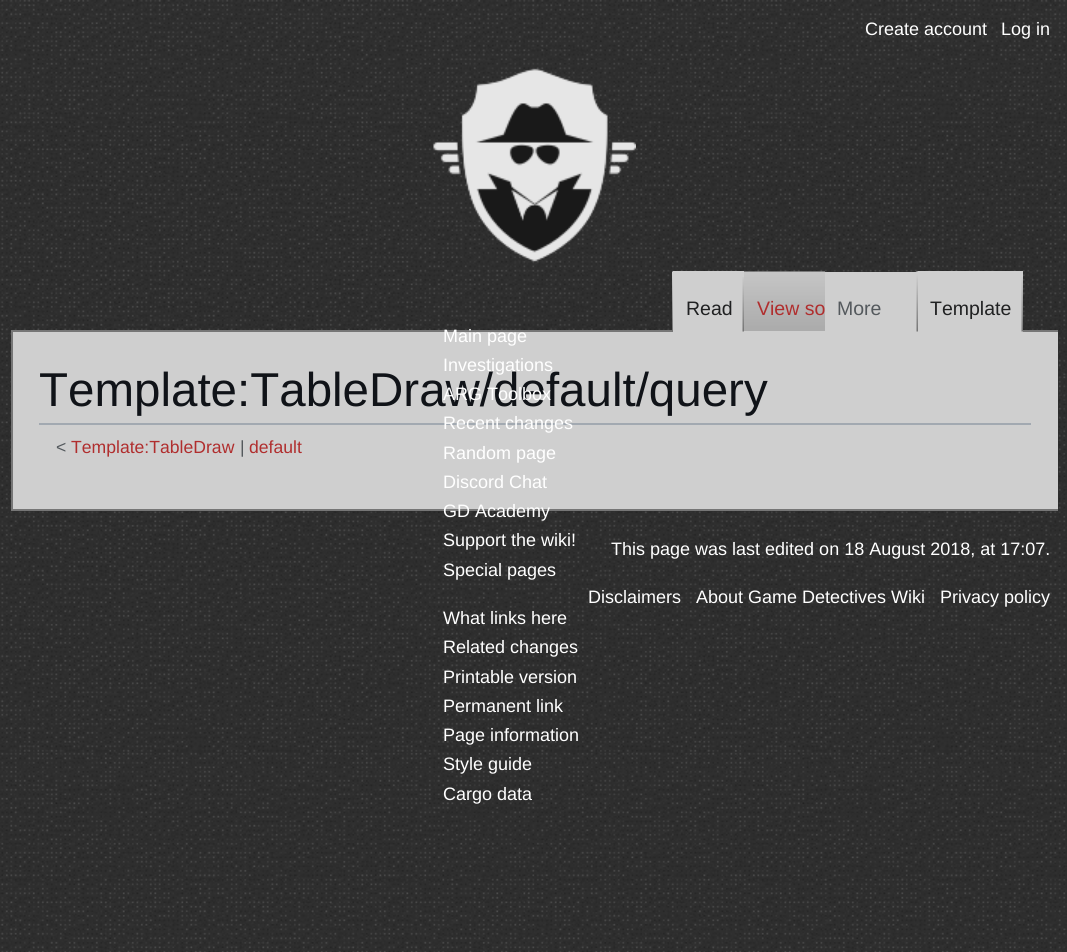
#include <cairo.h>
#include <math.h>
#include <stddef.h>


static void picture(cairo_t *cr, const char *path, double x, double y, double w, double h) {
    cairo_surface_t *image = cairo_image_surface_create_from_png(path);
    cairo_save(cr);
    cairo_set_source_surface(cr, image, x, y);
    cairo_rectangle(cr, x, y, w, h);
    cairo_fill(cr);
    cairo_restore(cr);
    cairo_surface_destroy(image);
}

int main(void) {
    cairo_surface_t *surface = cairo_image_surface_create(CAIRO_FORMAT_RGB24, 1067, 952);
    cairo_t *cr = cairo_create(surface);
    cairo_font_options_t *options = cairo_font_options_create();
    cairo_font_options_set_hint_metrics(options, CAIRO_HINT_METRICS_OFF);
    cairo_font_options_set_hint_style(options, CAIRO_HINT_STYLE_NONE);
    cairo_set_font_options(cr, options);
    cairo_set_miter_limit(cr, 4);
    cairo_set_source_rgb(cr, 1, 1, 1);
    cairo_paint(cr);
    picture(cr, "img1.png", 0, 0, 1067, 952);
    picture(cr, "img2.png", 0, 0, 1066, 120);
    cairo_select_font_face(cr, "Liberation Sans", CAIRO_FONT_SLANT_NORMAL, CAIRO_FONT_WEIGHT_NORMAL);
    cairo_set_font_size(cr, 18);
    cairo_set_source_rgb(cr, 1, 1, 1);
    cairo_move_to(cr, 865, 35);
    cairo_show_text(cr, "Create account");
    cairo_move_to(cr, 1001, 35);
    cairo_show_text(cr, "Log in");
    picture(cr, "img3.png", 672, 271, 1, 59);
    cairo_set_source_rgb(cr, 0.463, 0.463, 0.463);
    cairo_rectangle(cr, 11, 330, 1047, 2);
    cairo_fill(cr);
    cairo_set_source_rgb(cr, 0.812, 0.812, 0.812);
    cairo_rectangle(cr, 673, 271, 71, 61);
    cairo_fill(cr);
    picture(cr, "img4.png", 742, 277, 2, 55);
    cairo_set_font_size(cr, 19.5);
    cairo_set_source_rgb(cr, 0.125, 0.129, 0.133);
    cairo_move_to(cr, 686, 315);
    cairo_show_text(cr, "Read");
    cairo_set_source_rgb(cr, 0.953, 0.953, 0.953);
    cairo_rectangle(cr, 744, 331, 81, 1);
    cairo_fill(cr);
    picture(cr, "img5.png", 744, 271, 81, 61);
    cairo_set_source_rgb(cr, 0.69, 0.18, 0.18);
    cairo_move_to(cr, 757, 315);
    cairo_show_text(cr, "View so");
    cairo_set_source_rgb(cr, 0.812, 0.812, 0.812);
    cairo_rectangle(cr, 825, 272, 93, 60);
    cairo_fill(cr);
    picture(cr, "img7.png", 916, 271, 2, 1);
    picture(cr, "img6.png", 916, 271, 2, 61);
    cairo_set_source_rgb(cr, 0.329, 0.349, 0.365);
    cairo_move_to(cr, 837, 315);
    cairo_show_text(cr, "More");
    cairo_set_source_rgb(cr, 0.812, 0.812, 0.812);
    cairo_rectangle(cr, 918, 271, 105, 61);
    cairo_fill(cr);
    picture(cr, "img4.png", 1021, 277, 2, 55);
    cairo_set_source_rgb(cr, 0.125, 0.129, 0.133);
    cairo_move_to(cr, 930, 315);
    cairo_show_text(cr, "Template");
    picture(cr, "img8.png", 433, 68, 203, 194);
    cairo_set_source_rgb(cr, 0.812, 0.812, 0.812);
    cairo_rectangle(cr, 13, 332, 1045, 177);
    cairo_fill(cr);
    cairo_set_font_size(cr, 18);
    cairo_set_source_rgb(cr, 1, 1, 1);
    cairo_move_to(cr, 443, 342);
    cairo_show_text(cr, "Main page");
    cairo_move_to(cr, 443, 371);
    cairo_show_text(cr, "Investigations");
    cairo_set_font_size(cr, 47.5);
    cairo_set_source_rgb(cr, 0.063, 0.078, 0.094);
    cairo_move_to(cr, 39, 406);
    cairo_show_text(cr, "Template:TableDraw/default/query");
    cairo_set_font_size(cr, 18);
    cairo_set_source_rgb(cr, 1, 1, 1);
    cairo_move_to(cr, 443, 400);
    cairo_show_text(cr, "ARG Toolbox");
    cairo_set_source_rgb(cr, 0.635, 0.663, 0.694);
    cairo_rectangle(cr, 39, 423, 992, 2);
    cairo_fill(cr);
    cairo_set_source_rgb(cr, 1, 1, 1);
    cairo_move_to(cr, 443, 429);
    cairo_show_text(cr, "Recent changes");
    cairo_move_to(cr, 443, 459);
    cairo_show_text(cr, "Random page");
    cairo_move_to(cr, 443, 488);
    cairo_show_text(cr, "Discord Chat");
    cairo_set_source_rgb(cr, 0.463, 0.463, 0.463);
    cairo_rectangle(cr, 11, 509, 1047, 2);
    cairo_fill(cr);
    cairo_set_source_rgb(cr, 1, 1, 1);
    cairo_move_to(cr, 443, 517);
    cairo_show_text(cr, "GD Academy");
    cairo_move_to(cr, 443, 546);
    cairo_show_text(cr, "Support the wiki!");
    cairo_move_to(cr, 443, 576);
    cairo_show_text(cr, "Special pages");
    cairo_move_to(cr, 443, 624);
    cairo_show_text(cr, "What links here");
    cairo_move_to(cr, 443, 653);
    cairo_show_text(cr, "Related changes");
    cairo_move_to(cr, 443, 683);
    cairo_show_text(cr, "Printable version");
    cairo_move_to(cr, 443, 712);
    cairo_show_text(cr, "Permanent link");
    cairo_move_to(cr, 443, 741);
    cairo_show_text(cr, "Page information");
    cairo_move_to(cr, 443, 770);
    cairo_show_text(cr, "Style guide");
    cairo_move_to(cr, 443, 800);
    cairo_show_text(cr, "Cargo data");
    cairo_set_source_rgb(cr, 0.463, 0.463, 0.463);
    cairo_rectangle(cr, 11, 330, 2, 180);
    cairo_fill(cr);
    cairo_set_font_size(cr, 17.6);
    cairo_set_source_rgb(cr, 0.329, 0.349, 0.365);
    cairo_move_to(cr, 56, 453);
    cairo_show_text(cr, "<");
    cairo_set_source_rgb(cr, 0.69, 0.18, 0.18);
    cairo_move_to(cr, 71, 453);
    cairo_show_text(cr, "Template:TableDraw");
    cairo_set_source_rgb(cr, 0.329, 0.349, 0.365);
    cairo_move_to(cr, 240, 453);
    cairo_show_text(cr, "|");
    cairo_set_source_rgb(cr, 0.69, 0.18, 0.18);
    cairo_move_to(cr, 249, 453);
    cairo_show_text(cr, "default");
    cairo_set_font_size(cr, 18);
    cairo_set_source_rgb(cr, 1, 1, 1);
    cairo_move_to(cr, 611, 555);
    cairo_show_text(cr, "This page was last edited on 18 August 2018, at 17:07.");
    cairo_move_to(cr, 588, 603);
    cairo_show_text(cr, "Disclaimers");
    cairo_move_to(cr, 696, 603);
    cairo_show_text(cr, "About Game Detectives Wiki");
    cairo_move_to(cr, 940, 603);
    cairo_show_text(cr, "Privacy policy");
    cairo_surface_write_to_png(surface, "page.png");
    cairo_font_options_destroy(options);
    cairo_destroy(cr);
    cairo_surface_destroy(surface);
    return 0;
}
